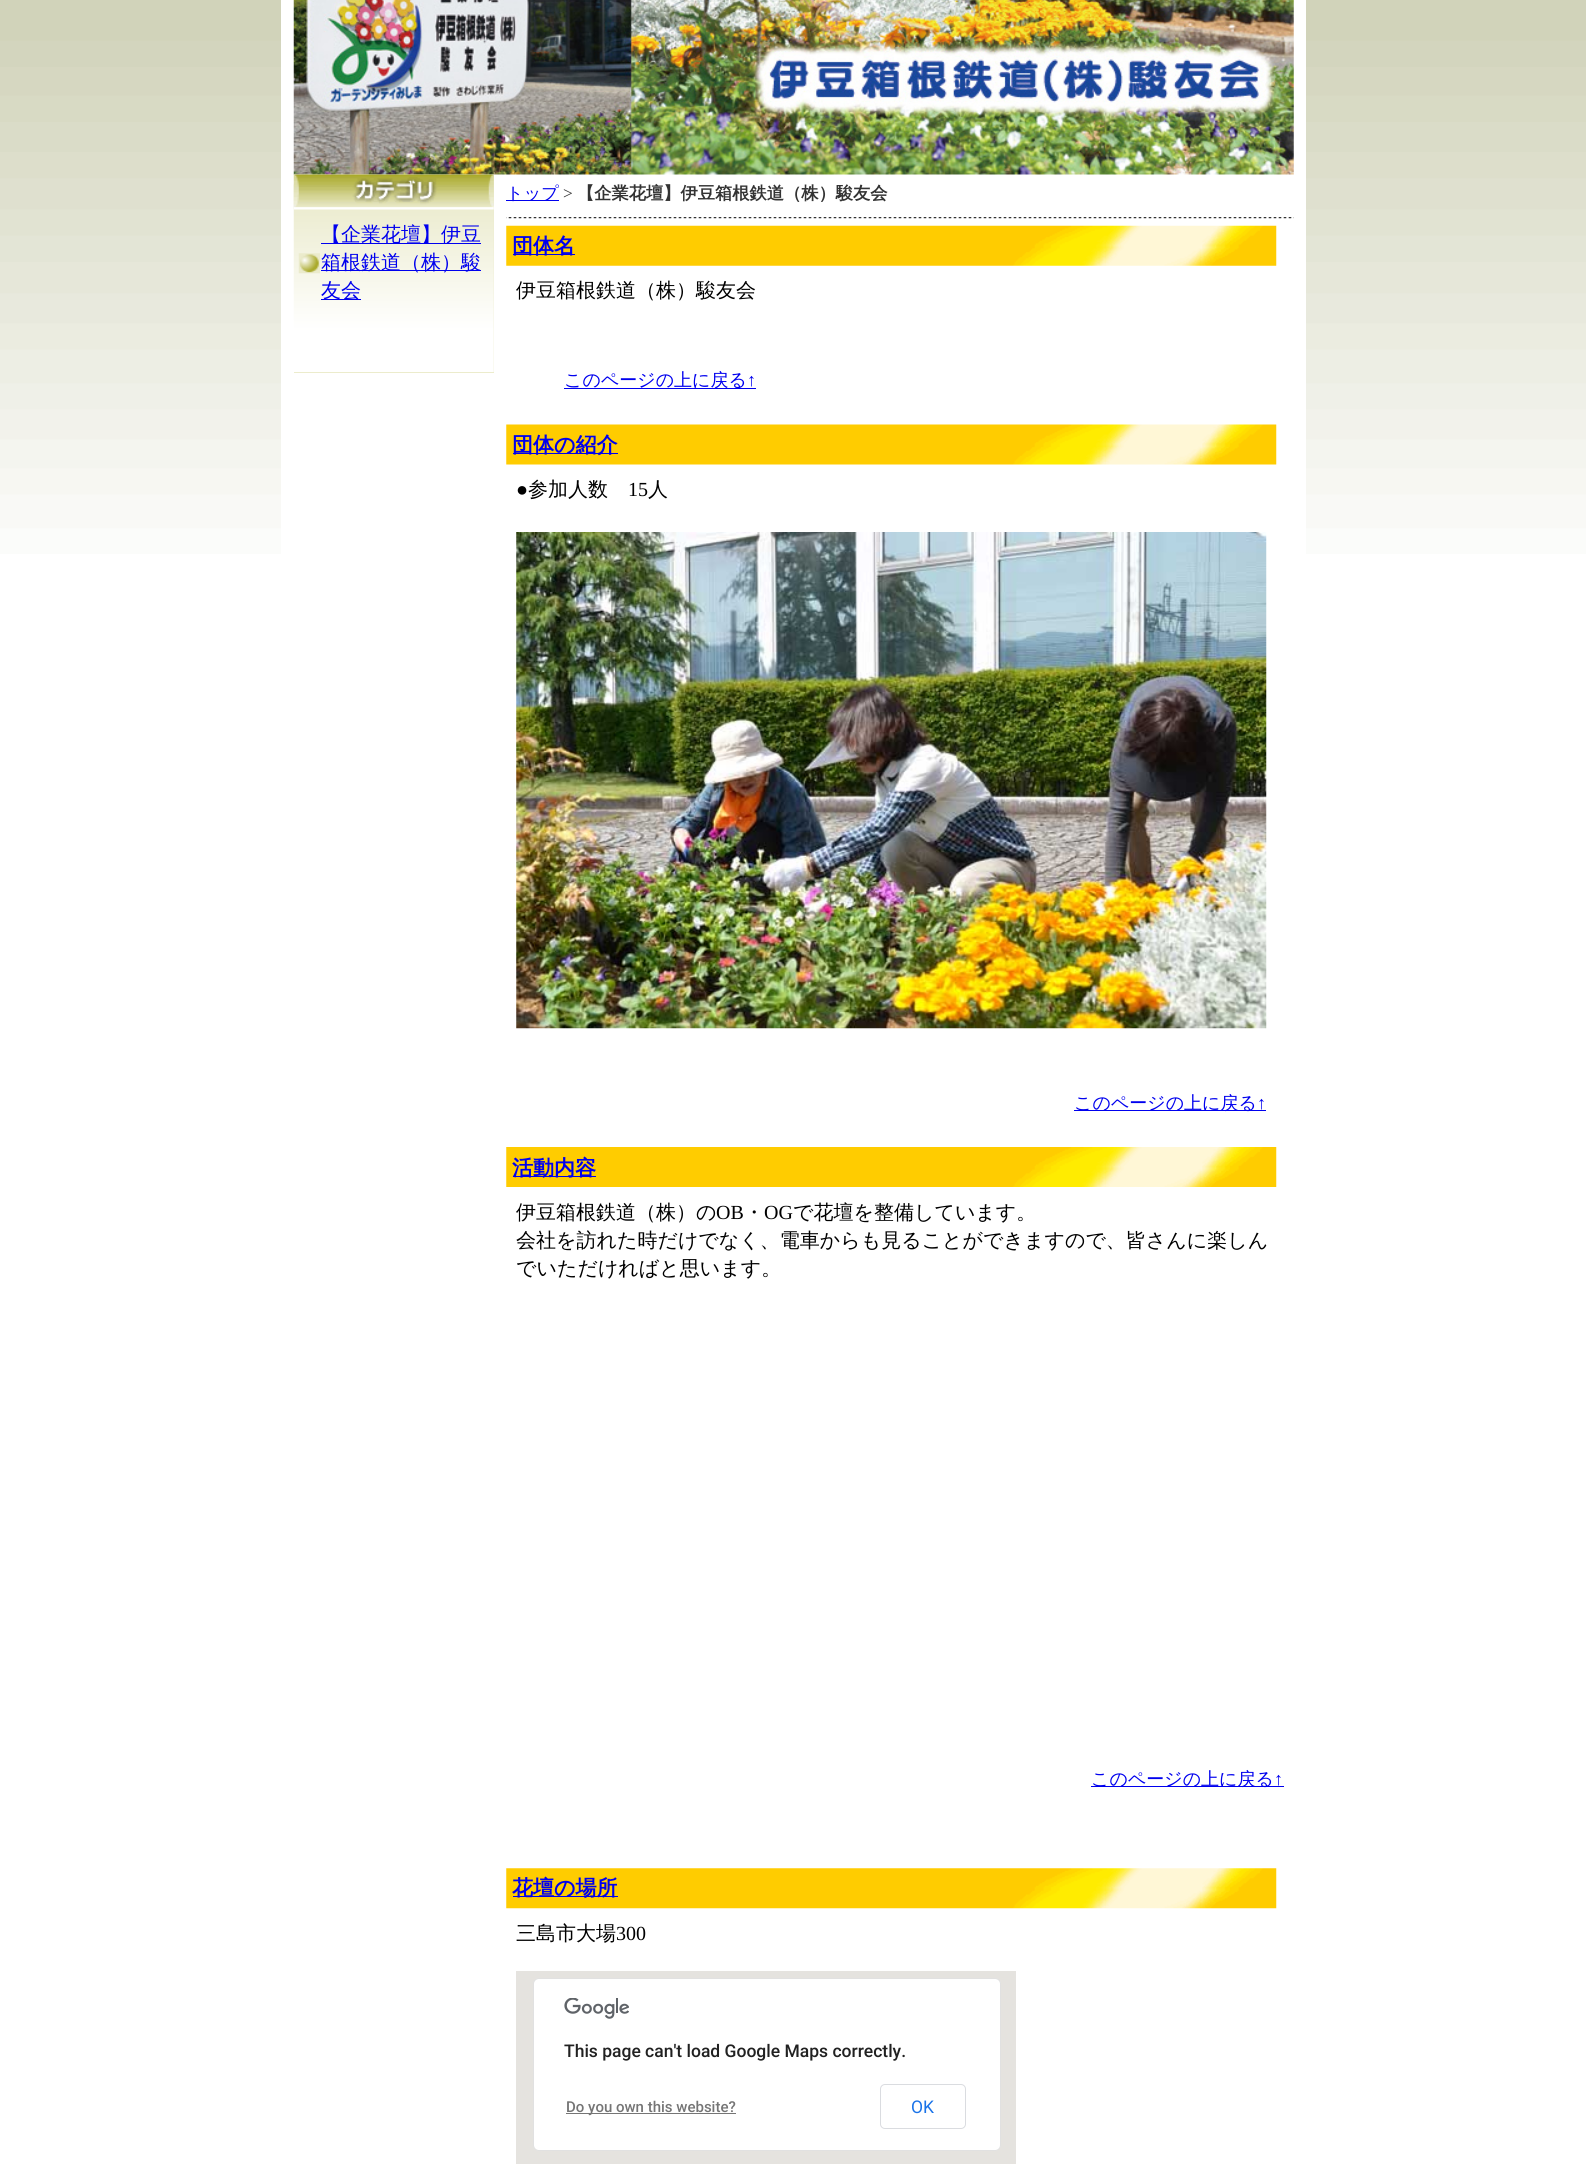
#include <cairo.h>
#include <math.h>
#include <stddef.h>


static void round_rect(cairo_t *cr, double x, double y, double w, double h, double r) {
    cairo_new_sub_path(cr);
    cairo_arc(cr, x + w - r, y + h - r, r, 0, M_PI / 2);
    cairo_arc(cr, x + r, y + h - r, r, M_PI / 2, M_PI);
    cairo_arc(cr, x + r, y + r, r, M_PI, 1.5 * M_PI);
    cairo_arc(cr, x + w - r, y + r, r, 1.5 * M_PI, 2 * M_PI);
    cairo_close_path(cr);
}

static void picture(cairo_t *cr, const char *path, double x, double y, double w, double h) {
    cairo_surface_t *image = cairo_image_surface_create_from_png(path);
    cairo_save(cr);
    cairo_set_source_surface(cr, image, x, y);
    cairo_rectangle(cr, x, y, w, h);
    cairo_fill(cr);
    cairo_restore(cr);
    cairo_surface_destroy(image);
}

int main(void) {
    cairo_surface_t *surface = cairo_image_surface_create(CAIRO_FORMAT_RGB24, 1586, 2164);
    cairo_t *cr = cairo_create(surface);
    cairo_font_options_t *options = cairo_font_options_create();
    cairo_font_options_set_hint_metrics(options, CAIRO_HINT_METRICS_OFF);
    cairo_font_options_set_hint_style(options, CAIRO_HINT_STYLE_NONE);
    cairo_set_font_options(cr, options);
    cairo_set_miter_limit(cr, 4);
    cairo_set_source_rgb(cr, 1, 1, 1);
    cairo_paint(cr);
    picture(cr, "img1.png", 0, 0, 1586, 554);
    cairo_set_source_rgb(cr, 1, 1, 1);
    cairo_rectangle(cr, 281, 0, 1025, 554);
    cairo_fill(cr);
    picture(cr, "img2.png", 293, 0, 1001, 175);
    cairo_set_source_rgb(cr, 0.922, 0.922, 0.8);
    cairo_rectangle(cr, 294, 175, 200, 198);
    cairo_fill(cr);
    picture(cr, "img3.png", 293, 184, 201, 188);
    picture(cr, "img4.png", 293, 174, 201, 36);
    picture(cr, "img5.png", 298, 253, 22, 21);
    cairo_set_source_rgb(cr, 0, 0, 0.933);
    cairo_rectangle(cr, 321, 243, 160, 1);
    cairo_fill(cr);
    cairo_select_font_face(cr, "WenQuanYi Zen Hei Medium", CAIRO_FONT_SLANT_NORMAL, CAIRO_FONT_WEIGHT_NORMAL);
    cairo_set_font_size(cr, 20);
    cairo_move_to(cr, 321, 241);
    cairo_show_text(cr, "【企業花壇】伊豆");
    cairo_rectangle(cr, 321, 270, 160, 1);
    cairo_fill(cr);
    cairo_move_to(cr, 321, 269);
    cairo_show_text(cr, "箱根鉄道（株）駿");
    cairo_rectangle(cr, 321, 299, 40, 1);
    cairo_fill(cr);
    cairo_move_to(cr, 321, 297);
    cairo_show_text(cr, "友会");
    picture(cr, "img6.png", 506, 217, 788, 2);
    cairo_rectangle(cr, 506, 200, 53, 1);
    cairo_fill(cr);
    cairo_set_font_size(cr, 17.25);
    cairo_move_to(cr, 506, 199);
    cairo_show_text(cr, "トップ");
    cairo_select_font_face(cr, "Liberation Serif", CAIRO_FONT_SLANT_NORMAL, CAIRO_FONT_WEIGHT_NORMAL);
    cairo_set_source_rgb(cr, 0.2, 0.2, 0.2);
    cairo_move_to(cr, 563, 199);
    cairo_show_text(cr, ">");
    cairo_select_font_face(cr, "WenQuanYi Zen Hei", CAIRO_FONT_SLANT_NORMAL, CAIRO_FONT_WEIGHT_BOLD);
    cairo_move_to(cr, 577, 199);
    cairo_show_text(cr, "【企業花壇】伊豆箱根鉄道（株）駿友会");
    picture(cr, "img7.png", 506, 225, 771, 41);
    cairo_set_source_rgb(cr, 0, 0, 0.933);
    cairo_rectangle(cr, 513, 254, 62, 1);
    cairo_fill(cr);
    cairo_set_font_size(cr, 21);
    cairo_move_to(cr, 512, 253);
    cairo_show_text(cr, "団体名");
    cairo_select_font_face(cr, "WenQuanYi Zen Hei Medium", CAIRO_FONT_SLANT_NORMAL, CAIRO_FONT_WEIGHT_NORMAL);
    cairo_set_font_size(cr, 20);
    cairo_set_source_rgb(cr, 0, 0, 0);
    cairo_move_to(cr, 516, 297);
    cairo_show_text(cr, "伊豆箱根鉄道（株）駿友会");
    cairo_set_source_rgb(cr, 0, 0, 0.933);
    cairo_rectangle(cr, 564, 388, 192, 1);
    cairo_fill(cr);
    cairo_set_font_size(cr, 18);
    cairo_move_to(cr, 564, 386);
    cairo_show_text(cr, "このページの上に戻る");
    cairo_select_font_face(cr, "Liberation Serif", CAIRO_FONT_SLANT_NORMAL, CAIRO_FONT_WEIGHT_NORMAL);
    cairo_move_to(cr, 747, 386);
    cairo_show_text(cr, "↑");
    picture(cr, "img8.png", 506, 424, 771, 41);
    cairo_rectangle(cr, 513, 453, 105, 1);
    cairo_fill(cr);
    cairo_select_font_face(cr, "WenQuanYi Zen Hei", CAIRO_FONT_SLANT_NORMAL, CAIRO_FONT_WEIGHT_BOLD);
    cairo_set_font_size(cr, 21);
    cairo_move_to(cr, 512, 452);
    cairo_show_text(cr, "団体の紹介");
    cairo_select_font_face(cr, "Liberation Serif", CAIRO_FONT_SLANT_NORMAL, CAIRO_FONT_WEIGHT_NORMAL);
    cairo_set_font_size(cr, 20);
    cairo_set_source_rgb(cr, 0, 0, 0);
    cairo_move_to(cr, 516, 496);
    cairo_show_text(cr, "●");
    cairo_select_font_face(cr, "WenQuanYi Zen Hei Medium", CAIRO_FONT_SLANT_NORMAL, CAIRO_FONT_WEIGHT_NORMAL);
    cairo_move_to(cr, 528, 496);
    cairo_show_text(cr, "参加人数");
    cairo_select_font_face(cr, "Liberation Serif", CAIRO_FONT_SLANT_NORMAL, CAIRO_FONT_WEIGHT_NORMAL);
    cairo_move_to(cr, 628, 496);
    cairo_show_text(cr, "15");
    cairo_select_font_face(cr, "WenQuanYi Zen Hei Medium", CAIRO_FONT_SLANT_NORMAL, CAIRO_FONT_WEIGHT_NORMAL);
    cairo_move_to(cr, 648, 496);
    cairo_show_text(cr, "人");
    picture(cr, "img9.png", 516, 532, 751, 497);
    cairo_set_source_rgb(cr, 0, 0, 0.933);
    cairo_rectangle(cr, 1074, 1110, 192, 1);
    cairo_fill(cr);
    cairo_set_font_size(cr, 18);
    cairo_move_to(cr, 1074, 1109);
    cairo_show_text(cr, "このページの上に戻る");
    cairo_select_font_face(cr, "Liberation Serif", CAIRO_FONT_SLANT_NORMAL, CAIRO_FONT_WEIGHT_NORMAL);
    cairo_move_to(cr, 1257, 1109);
    cairo_show_text(cr, "↑");
    picture(cr, "img10.png", 506, 1147, 771, 40);
    cairo_rectangle(cr, 513, 1176, 83, 1);
    cairo_fill(cr);
    cairo_select_font_face(cr, "WenQuanYi Zen Hei", CAIRO_FONT_SLANT_NORMAL, CAIRO_FONT_WEIGHT_BOLD);
    cairo_set_font_size(cr, 21);
    cairo_move_to(cr, 512, 1175);
    cairo_show_text(cr, "活動内容");
    cairo_select_font_face(cr, "WenQuanYi Zen Hei Medium", CAIRO_FONT_SLANT_NORMAL, CAIRO_FONT_WEIGHT_NORMAL);
    cairo_set_font_size(cr, 20);
    cairo_set_source_rgb(cr, 0, 0, 0);
    cairo_move_to(cr, 516, 1219);
    cairo_show_text(cr, "伊豆箱根鉄道（株）の");
    cairo_select_font_face(cr, "Liberation Serif", CAIRO_FONT_SLANT_NORMAL, CAIRO_FONT_WEIGHT_NORMAL);
    cairo_move_to(cr, 716, 1219);
    cairo_show_text(cr, "OB");
    cairo_select_font_face(cr, "WenQuanYi Zen Hei Medium", CAIRO_FONT_SLANT_NORMAL, CAIRO_FONT_WEIGHT_NORMAL);
    cairo_move_to(cr, 744, 1219);
    cairo_show_text(cr, "・");
    cairo_select_font_face(cr, "Liberation Serif", CAIRO_FONT_SLANT_NORMAL, CAIRO_FONT_WEIGHT_NORMAL);
    cairo_move_to(cr, 764, 1219);
    cairo_show_text(cr, "OG");
    cairo_select_font_face(cr, "WenQuanYi Zen Hei Medium", CAIRO_FONT_SLANT_NORMAL, CAIRO_FONT_WEIGHT_NORMAL);
    cairo_move_to(cr, 793, 1219);
    cairo_show_text(cr, "で花壇を整備しています。");
    cairo_move_to(cr, 516, 1247);
    cairo_show_text(cr, "会社を訪れた時だけでなく、電車からも見ることができますので、皆さんに楽しん");
    cairo_move_to(cr, 516, 1275);
    cairo_show_text(cr, "でいただければと思います。");
    cairo_set_source_rgb(cr, 0, 0, 0.933);
    cairo_rectangle(cr, 1091, 1786, 193, 1);
    cairo_fill(cr);
    cairo_set_font_size(cr, 18);
    cairo_move_to(cr, 1091, 1785);
    cairo_show_text(cr, "このページの上に戻る");
    cairo_select_font_face(cr, "Liberation Serif", CAIRO_FONT_SLANT_NORMAL, CAIRO_FONT_WEIGHT_NORMAL);
    cairo_move_to(cr, 1274, 1785);
    cairo_show_text(cr, "↑");
    picture(cr, "img11.png", 506, 1868, 771, 41);
    cairo_rectangle(cr, 513, 1896, 105, 1);
    cairo_fill(cr);
    cairo_select_font_face(cr, "WenQuanYi Zen Hei", CAIRO_FONT_SLANT_NORMAL, CAIRO_FONT_WEIGHT_BOLD);
    cairo_set_font_size(cr, 21);
    cairo_move_to(cr, 512, 1895);
    cairo_show_text(cr, "花壇の場所");
    cairo_select_font_face(cr, "WenQuanYi Zen Hei Medium", CAIRO_FONT_SLANT_NORMAL, CAIRO_FONT_WEIGHT_NORMAL);
    cairo_set_font_size(cr, 20);
    cairo_set_source_rgb(cr, 0, 0, 0);
    cairo_move_to(cr, 516, 1940);
    cairo_show_text(cr, "三島市大場");
    cairo_select_font_face(cr, "Liberation Serif", CAIRO_FONT_SLANT_NORMAL, CAIRO_FONT_WEIGHT_NORMAL);
    cairo_move_to(cr, 616, 1940);
    cairo_show_text(cr, "300");
    cairo_set_source_rgb(cr, 0.898, 0.89, 0.875);
    cairo_rectangle(cr, 516, 1971, 500, 193);
    cairo_fill(cr);
    cairo_set_source_rgb(cr, 1, 1, 1);
    round_rect(cr, 533, 1978, 468, 173, 6);
    cairo_fill(cr);
    round_rect(cr, 533.5, 1978.5, 467, 172, 5.5);
    cairo_set_source_rgba(cr, 0, 0, 0, 0.12);
    cairo_set_line_width(cr, 1);
    cairo_stroke(cr);
    picture(cr, "img12.png", 564, 1998, 65, 21);
    cairo_select_font_face(cr, "Roboto Medium", CAIRO_FONT_SLANT_NORMAL, CAIRO_FONT_WEIGHT_NORMAL);
    cairo_set_font_size(cr, 17.5);
    cairo_set_source_rgb(cr, 0.129, 0.129, 0.129);
    cairo_move_to(cr, 564, 2057);
    cairo_show_text(cr, "This page can't load Google Maps correctly.");
    cairo_set_source_rgb(cr, 0.459, 0.459, 0.459);
    cairo_rectangle(cr, 566, 2113, 170, 1);
    cairo_fill(cr);
    cairo_set_font_size(cr, 15);
    cairo_move_to(cr, 566, 2112);
    cairo_show_text(cr, "Do you own this website?");
    round_rect(cr, 880.5, 2084.5, 85, 44, 4.5);
    cairo_set_source_rgb(cr, 0.855, 0.863, 0.878);
    cairo_stroke(cr);
    cairo_select_font_face(cr, "Roboto", CAIRO_FONT_SLANT_NORMAL, CAIRO_FONT_WEIGHT_NORMAL);
    cairo_set_font_size(cr, 17.5);
    cairo_set_source_rgb(cr, 0.102, 0.451, 0.91);
    cairo_move_to(cr, 911, 2113);
    cairo_show_text(cr, "OK");
    cairo_surface_write_to_png(surface, "page.png");
    cairo_font_options_destroy(options);
    cairo_destroy(cr);
    cairo_surface_destroy(surface);
    return 0;
}
